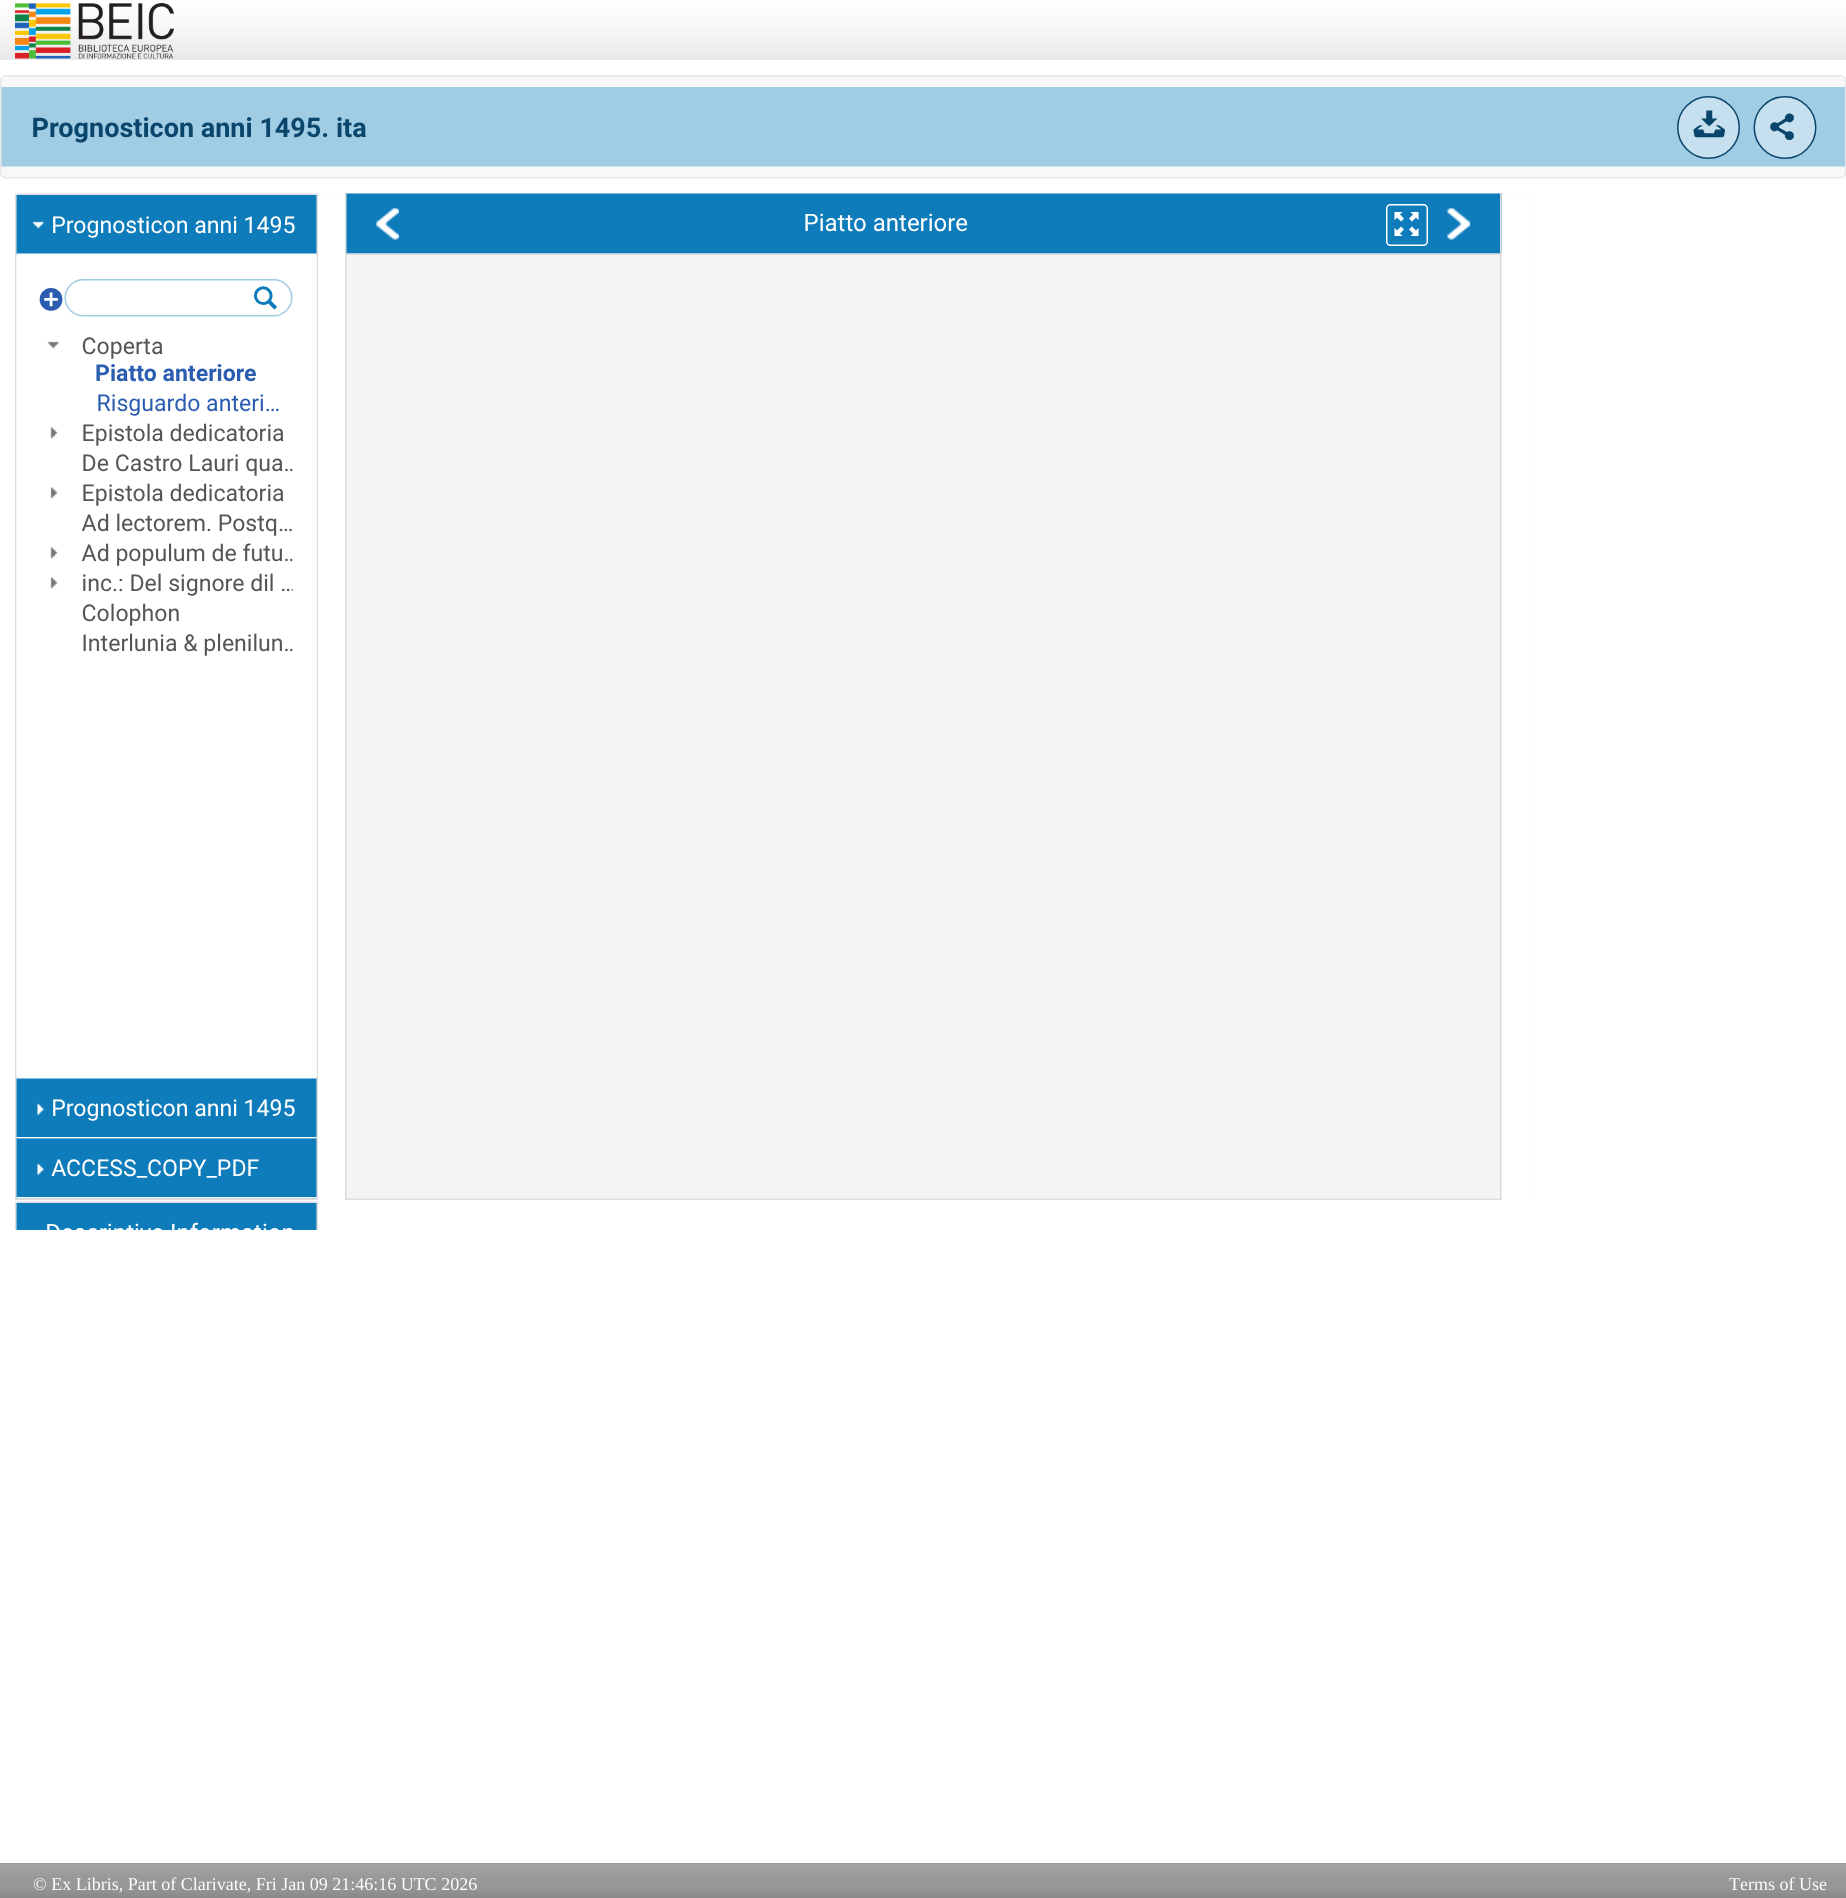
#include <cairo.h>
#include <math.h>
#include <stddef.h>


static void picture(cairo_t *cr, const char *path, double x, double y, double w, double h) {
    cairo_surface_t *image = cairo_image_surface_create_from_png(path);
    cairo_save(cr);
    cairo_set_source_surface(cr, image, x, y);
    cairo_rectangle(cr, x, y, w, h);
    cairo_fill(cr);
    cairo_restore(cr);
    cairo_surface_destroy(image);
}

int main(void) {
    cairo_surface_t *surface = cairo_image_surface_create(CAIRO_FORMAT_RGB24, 1846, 1898);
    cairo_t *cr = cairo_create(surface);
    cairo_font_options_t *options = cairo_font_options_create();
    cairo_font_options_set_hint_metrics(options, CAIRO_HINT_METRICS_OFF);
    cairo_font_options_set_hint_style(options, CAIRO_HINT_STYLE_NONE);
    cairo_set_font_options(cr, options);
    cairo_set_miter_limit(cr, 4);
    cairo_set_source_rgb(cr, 1, 1, 1);
    cairo_paint(cr);
    picture(cr, "img1.png", 0, 0, 1846, 60);
    picture(cr, "img2.png", 15, 3, 159, 56);
    picture(cr, "img3.png", 0, 75, 1846, 1155);
    cairo_set_source_rgb(cr, 0.6, 0.592, 0.592);
    cairo_rectangle(cr, 0, 1864, 1846, 34);
    cairo_fill(cr);
    picture(cr, "img4.png", 0, 1863, 1846, 35);
    cairo_select_font_face(cr, "Liberation Serif", CAIRO_FONT_SLANT_NORMAL, CAIRO_FONT_WEIGHT_NORMAL);
    cairo_set_font_size(cr, 18);
    cairo_set_source_rgb(cr, 1, 1, 1);
    cairo_move_to(cr, 33, 1890);
    cairo_show_text(cr, "© Ex Libris, Part of Clarivate, Fri Jan 09 21:46:16 UTC 2026");
    cairo_move_to(cr, 1729, 1890);
    cairo_show_text(cr, "Terms of Use");
    cairo_surface_write_to_png(surface, "page.png");
    cairo_font_options_destroy(options);
    cairo_destroy(cr);
    cairo_surface_destroy(surface);
    return 0;
}
